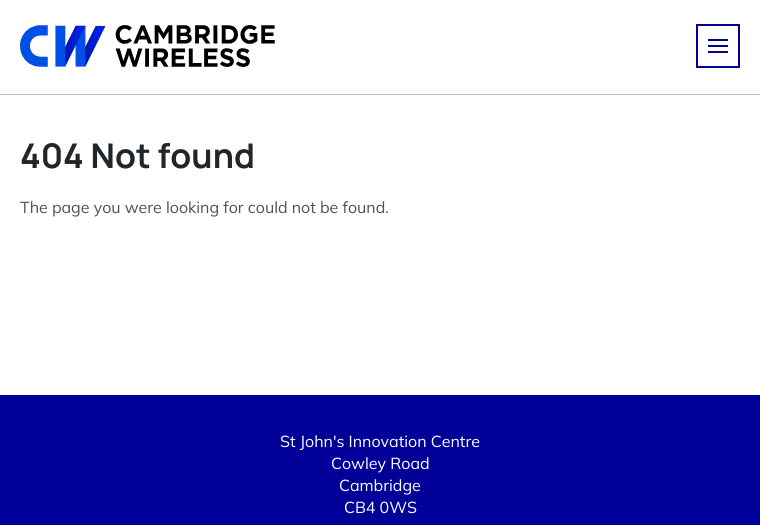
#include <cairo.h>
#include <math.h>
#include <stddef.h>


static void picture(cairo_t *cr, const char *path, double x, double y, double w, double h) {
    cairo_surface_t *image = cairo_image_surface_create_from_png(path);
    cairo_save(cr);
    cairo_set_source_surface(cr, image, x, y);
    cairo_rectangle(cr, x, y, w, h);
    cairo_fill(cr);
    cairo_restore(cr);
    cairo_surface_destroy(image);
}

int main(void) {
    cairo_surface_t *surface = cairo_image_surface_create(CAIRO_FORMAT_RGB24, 760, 525);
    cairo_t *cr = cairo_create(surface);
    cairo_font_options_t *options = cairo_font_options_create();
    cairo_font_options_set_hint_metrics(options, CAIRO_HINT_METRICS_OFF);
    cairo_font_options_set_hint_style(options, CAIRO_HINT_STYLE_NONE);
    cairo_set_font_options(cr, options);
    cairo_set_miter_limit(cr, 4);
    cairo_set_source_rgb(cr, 1, 1, 1);
    cairo_paint(cr);
    cairo_set_source_rgb(cr, 0.729, 0.737, 0.741);
    cairo_rectangle(cr, 0, 94, 760, 1);
    cairo_fill(cr);
    picture(cr, "img1.png", 20, 25, 255, 42);
    cairo_rectangle(cr, 697, 25, 42, 42);
    cairo_set_source_rgb(cr, 0, 0, 0.6);
    cairo_stroke(cr);
    cairo_rectangle(cr, 708, 45, 20, 2);
    cairo_fill(cr);
    cairo_rectangle(cr, 708, 39, 20, 2);
    cairo_fill(cr);
    cairo_rectangle(cr, 708, 51, 20, 2);
    cairo_fill(cr);
    cairo_select_font_face(cr, "Manrope ExtraLight", CAIRO_FONT_SLANT_NORMAL, CAIRO_FONT_WEIGHT_NORMAL);
    cairo_set_font_size(cr, 34);
    cairo_set_source_rgb(cr, 0.129, 0.149, 0.165);
    cairo_move_to(cr, 20, 168);
    cairo_show_text(cr, "404 Not found");
    cairo_select_font_face(cr, "Mulish", CAIRO_FONT_SLANT_NORMAL, CAIRO_FONT_WEIGHT_NORMAL);
    cairo_set_font_size(cr, 16);
    cairo_set_source_rgb(cr, 0.302, 0.318, 0.333);
    cairo_move_to(cr, 20, 213);
    cairo_show_text(cr, "The page you were looking for could not be found.");
    cairo_set_source_rgb(cr, 0, 0, 0.6);
    cairo_rectangle(cr, 0, 395, 760, 130);
    cairo_fill(cr);
    cairo_set_source_rgb(cr, 1, 1, 1);
    cairo_move_to(cr, 280, 447);
    cairo_show_text(cr, "St John's Innovation Centre");
    cairo_move_to(cr, 331, 469);
    cairo_show_text(cr, "Cowley Road");
    cairo_move_to(cr, 339, 491);
    cairo_show_text(cr, "Cambridge");
    cairo_move_to(cr, 344, 513);
    cairo_show_text(cr, "CB4 0WS");
    cairo_surface_write_to_png(surface, "page.png");
    cairo_font_options_destroy(options);
    cairo_destroy(cr);
    cairo_surface_destroy(surface);
    return 0;
}
